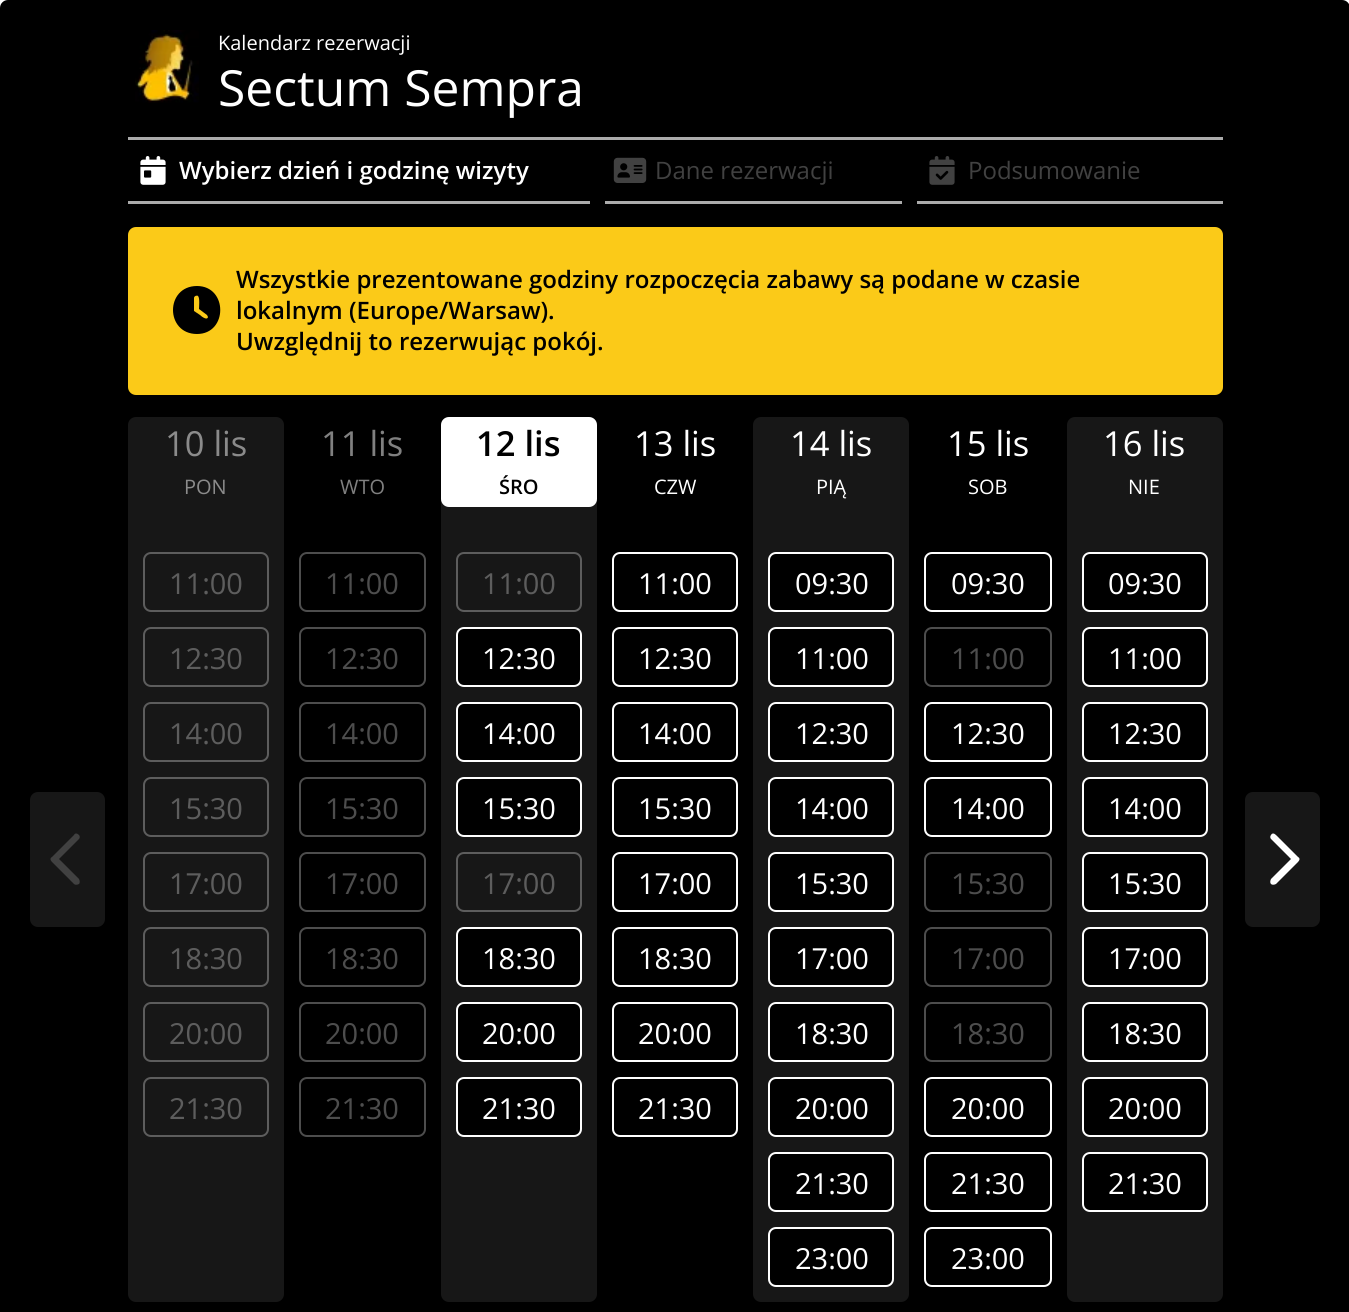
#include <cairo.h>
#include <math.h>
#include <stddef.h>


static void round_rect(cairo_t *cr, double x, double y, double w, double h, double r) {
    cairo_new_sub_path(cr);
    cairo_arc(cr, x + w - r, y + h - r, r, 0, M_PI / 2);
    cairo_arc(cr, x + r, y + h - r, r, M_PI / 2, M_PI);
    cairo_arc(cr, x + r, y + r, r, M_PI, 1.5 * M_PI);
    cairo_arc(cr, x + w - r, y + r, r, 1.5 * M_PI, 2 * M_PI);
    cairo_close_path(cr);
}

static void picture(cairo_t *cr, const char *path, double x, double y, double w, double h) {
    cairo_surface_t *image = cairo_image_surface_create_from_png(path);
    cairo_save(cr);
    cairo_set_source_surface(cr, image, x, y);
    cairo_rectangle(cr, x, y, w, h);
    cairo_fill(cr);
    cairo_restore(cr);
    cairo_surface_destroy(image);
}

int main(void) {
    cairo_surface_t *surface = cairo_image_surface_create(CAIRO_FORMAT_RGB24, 1349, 1312);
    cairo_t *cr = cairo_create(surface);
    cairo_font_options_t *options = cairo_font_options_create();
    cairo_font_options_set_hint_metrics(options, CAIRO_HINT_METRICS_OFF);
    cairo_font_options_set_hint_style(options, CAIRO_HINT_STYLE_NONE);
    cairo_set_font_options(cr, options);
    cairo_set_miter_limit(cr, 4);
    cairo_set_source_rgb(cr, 1, 1, 1);
    cairo_paint(cr);
    cairo_set_source_rgb(cr, 0, 0, 0);
    round_rect(cr, 0, 0, 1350, 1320, 8);
    cairo_fill(cr);
    picture(cr, "img1.png", 135, 30, 64, 73);
    cairo_select_font_face(cr, "Open Sans", CAIRO_FONT_SLANT_NORMAL, CAIRO_FONT_WEIGHT_NORMAL);
    cairo_set_font_size(cr, 20);
    cairo_set_source_rgb(cr, 1, 1, 1);
    cairo_move_to(cr, 218, 50);
    cairo_show_text(cr, "Kalendarz rezerwacji");
    cairo_set_font_size(cr, 49.75);
    cairo_move_to(cr, 218, 106);
    cairo_show_text(cr, "Sectum Sempra");
    cairo_set_source_rgb(cr, 0.671, 0.671, 0.671);
    cairo_rectangle(cr, 128, 137, 1095, 3);
    cairo_fill(cr);
    cairo_rectangle(cr, 128, 201, 462, 3);
    cairo_fill(cr);
    picture(cr, "img2.png", 140, 156, 26, 29);
    cairo_select_font_face(cr, "Open Sans SemiBold", CAIRO_FONT_SLANT_NORMAL, CAIRO_FONT_WEIGHT_NORMAL);
    cairo_set_font_size(cr, 24);
    cairo_set_source_rgb(cr, 1, 1, 1);
    cairo_move_to(cr, 179, 179);
    cairo_show_text(cr, "Wybierz dzień i godzinę wizyty");
    cairo_set_source_rgb(cr, 0.671, 0.671, 0.671);
    cairo_rectangle(cr, 605, 201, 297, 3);
    cairo_fill(cr);
    picture(cr, "img3.png", 613, 157, 34, 26);
    cairo_select_font_face(cr, "Open Sans", CAIRO_FONT_SLANT_NORMAL, CAIRO_FONT_WEIGHT_NORMAL);
    cairo_set_source_rgb(cr, 0.255, 0.255, 0.255);
    cairo_move_to(cr, 655, 179);
    cairo_show_text(cr, "Dane rezerwacji");
    cairo_set_source_rgb(cr, 0.671, 0.671, 0.671);
    cairo_rectangle(cr, 917, 201, 306, 3);
    cairo_fill(cr);
    picture(cr, "img4.png", 929, 156, 26, 29);
    cairo_set_source_rgb(cr, 0.255, 0.255, 0.255);
    cairo_move_to(cr, 968, 179);
    cairo_show_text(cr, "Podsumowanie");
    cairo_set_source_rgb(cr, 0.984, 0.792, 0.094);
    round_rect(cr, 128, 227, 1095, 168, 8);
    cairo_fill(cr);
    cairo_set_source_rgb(cr, 0, 0, 0);
    cairo_new_path(cr);
    cairo_move_to(cr, 197, 286);
    cairo_curve_to(cr, 228, 286, 228, 334, 197, 334);
    cairo_curve_to(cr, 165, 334, 165, 286, 197, 286);
    cairo_close_path(cr);
    cairo_move_to(cr, 194, 298);
    cairo_line_to(cr, 194, 311);
    cairo_line_to(cr, 200, 315);
    cairo_curve_to(cr, 201, 316, 207, 321, 208, 317);
    cairo_line_to(cr, 207, 315);
    cairo_line_to(cr, 199, 309);
    cairo_curve_to(cr, 199, 307, 200, 298, 198, 296);
    cairo_curve_to(cr, 197, 295, 194, 296, 194, 298);
    cairo_close_path(cr);
    cairo_fill(cr);
    cairo_select_font_face(cr, "Open Sans SemiBold", CAIRO_FONT_SLANT_NORMAL, CAIRO_FONT_WEIGHT_NORMAL);
    cairo_move_to(cr, 236, 288);
    cairo_show_text(cr, "Wszystkie prezentowane godziny rozpoczęcia zabawy są podane w czasie");
    cairo_move_to(cr, 236, 319);
    cairo_show_text(cr, "lokalnym (Europe/Warsaw).");
    cairo_move_to(cr, 236, 350);
    cairo_show_text(cr, "Uwzględnij to rezerwując pokój.");
    cairo_set_source_rgb(cr, 0.09, 0.09, 0.09);
    round_rect(cr, 30, 792, 75, 135, 8);
    cairo_fill(cr);
    cairo_set_source_rgb(cr, 0.255, 0.255, 0.255);
    cairo_new_path(cr);
    cairo_move_to(cr, 52, 857);
    cairo_curve_to(cr, 50, 858, 50, 860, 52, 862);
    cairo_line_to(cr, 74, 884);
    cairo_curve_to(cr, 75, 885, 77, 885, 79, 884);
    cairo_curve_to(cr, 80, 883, 80, 881, 79, 879);
    cairo_line_to(cr, 59, 859);
    cairo_line_to(cr, 79, 839);
    cairo_curve_to(cr, 80, 838, 80, 836, 79, 835);
    cairo_curve_to(cr, 77, 833, 75, 833, 74, 835);
    cairo_close_path(cr);
    cairo_fill(cr);
    cairo_set_source_rgb(cr, 0.09, 0.09, 0.09);
    round_rect(cr, 128, 417, 156, 885, 8);
    cairo_fill(cr);
    cairo_select_font_face(cr, "Open Sans", CAIRO_FONT_SLANT_NORMAL, CAIRO_FONT_WEIGHT_NORMAL);
    cairo_set_font_size(cr, 34.5);
    cairo_set_source_rgb(cr, 0.545, 0.545, 0.545);
    cairo_move_to(cr, 165, 456);
    cairo_show_text(cr, "10 lis");
    cairo_set_font_size(cr, 20);
    cairo_move_to(cr, 184, 494);
    cairo_show_text(cr, "PON");
    round_rect(cr, 144, 553, 124, 58, 7);
    cairo_set_source_rgb(cr, 0.365, 0.365, 0.365);
    cairo_stroke(cr);
    cairo_set_font_size(cr, 29);
    cairo_move_to(cr, 169, 594);
    cairo_show_text(cr, "11:00");
    round_rect(cr, 144, 628, 124, 58, 7);
    cairo_stroke(cr);
    cairo_move_to(cr, 169, 669);
    cairo_show_text(cr, "12:30");
    round_rect(cr, 144, 703, 124, 58, 7);
    cairo_stroke(cr);
    cairo_move_to(cr, 169, 744);
    cairo_show_text(cr, "14:00");
    round_rect(cr, 144, 778, 124, 58, 7);
    cairo_stroke(cr);
    cairo_move_to(cr, 169, 819);
    cairo_show_text(cr, "15:30");
    round_rect(cr, 144, 853, 124, 58, 7);
    cairo_stroke(cr);
    cairo_move_to(cr, 169, 894);
    cairo_show_text(cr, "17:00");
    round_rect(cr, 144, 928, 124, 58, 7);
    cairo_stroke(cr);
    cairo_move_to(cr, 169, 969);
    cairo_show_text(cr, "18:30");
    round_rect(cr, 144, 1003, 124, 58, 7);
    cairo_stroke(cr);
    cairo_move_to(cr, 169, 1044);
    cairo_show_text(cr, "20:00");
    round_rect(cr, 144, 1078, 124, 58, 7);
    cairo_stroke(cr);
    cairo_move_to(cr, 169, 1119);
    cairo_show_text(cr, "21:30");
    cairo_set_font_size(cr, 34.5);
    cairo_set_source_rgb(cr, 0.502, 0.502, 0.502);
    cairo_move_to(cr, 321, 456);
    cairo_show_text(cr, "11 lis");
    cairo_set_font_size(cr, 20);
    cairo_move_to(cr, 340, 494);
    cairo_show_text(cr, "WTO");
    round_rect(cr, 300, 553, 125, 58, 7);
    cairo_set_source_rgb(cr, 0.302, 0.302, 0.302);
    cairo_stroke(cr);
    cairo_set_font_size(cr, 29);
    cairo_move_to(cr, 325, 594);
    cairo_show_text(cr, "11:00");
    round_rect(cr, 300, 628, 125, 58, 7);
    cairo_stroke(cr);
    cairo_move_to(cr, 325, 669);
    cairo_show_text(cr, "12:30");
    round_rect(cr, 300, 703, 125, 58, 7);
    cairo_stroke(cr);
    cairo_move_to(cr, 325, 744);
    cairo_show_text(cr, "14:00");
    round_rect(cr, 300, 778, 125, 58, 7);
    cairo_stroke(cr);
    cairo_move_to(cr, 325, 819);
    cairo_show_text(cr, "15:30");
    round_rect(cr, 300, 853, 125, 58, 7);
    cairo_stroke(cr);
    cairo_move_to(cr, 325, 894);
    cairo_show_text(cr, "17:00");
    round_rect(cr, 300, 928, 125, 58, 7);
    cairo_stroke(cr);
    cairo_move_to(cr, 325, 969);
    cairo_show_text(cr, "18:30");
    round_rect(cr, 300, 1003, 125, 58, 7);
    cairo_stroke(cr);
    cairo_move_to(cr, 325, 1044);
    cairo_show_text(cr, "20:00");
    round_rect(cr, 300, 1078, 125, 58, 7);
    cairo_stroke(cr);
    cairo_move_to(cr, 325, 1119);
    cairo_show_text(cr, "21:30");
    cairo_set_source_rgb(cr, 0.09, 0.09, 0.09);
    round_rect(cr, 441, 417, 156, 885, 8);
    cairo_fill(cr);
    cairo_set_source_rgb(cr, 1, 1, 1);
    round_rect(cr, 441, 417, 156, 90, 8);
    cairo_fill(cr);
    cairo_select_font_face(cr, "Open Sans SemiBold", CAIRO_FONT_SLANT_NORMAL, CAIRO_FONT_WEIGHT_NORMAL);
    cairo_set_font_size(cr, 34.5);
    cairo_set_source_rgb(cr, 0, 0, 0);
    cairo_move_to(cr, 476, 456);
    cairo_show_text(cr, "12 lis");
    cairo_set_font_size(cr, 20);
    cairo_move_to(cr, 499, 494);
    cairo_show_text(cr, "ŚRO");
    round_rect(cr, 457, 553, 124, 58, 7);
    cairo_set_source_rgb(cr, 0.365, 0.365, 0.365);
    cairo_stroke(cr);
    cairo_select_font_face(cr, "Open Sans", CAIRO_FONT_SLANT_NORMAL, CAIRO_FONT_WEIGHT_NORMAL);
    cairo_set_font_size(cr, 29);
    cairo_move_to(cr, 482, 594);
    cairo_show_text(cr, "11:00");
    cairo_set_source_rgb(cr, 0, 0, 0);
    round_rect(cr, 457, 628, 124, 58, 7);
    cairo_fill_preserve(cr);
    cairo_set_source_rgb(cr, 1, 1, 1);
    cairo_stroke(cr);
    cairo_move_to(cr, 482, 669);
    cairo_show_text(cr, "12:30");
    cairo_set_source_rgb(cr, 0, 0, 0);
    round_rect(cr, 457, 703, 124, 58, 7);
    cairo_fill_preserve(cr);
    cairo_set_source_rgb(cr, 1, 1, 1);
    cairo_stroke(cr);
    cairo_move_to(cr, 482, 744);
    cairo_show_text(cr, "14:00");
    cairo_set_source_rgb(cr, 0, 0, 0);
    round_rect(cr, 457, 778, 124, 58, 7);
    cairo_fill_preserve(cr);
    cairo_set_source_rgb(cr, 1, 1, 1);
    cairo_stroke(cr);
    cairo_move_to(cr, 482, 819);
    cairo_show_text(cr, "15:30");
    round_rect(cr, 457, 853, 124, 58, 7);
    cairo_set_source_rgb(cr, 0.365, 0.365, 0.365);
    cairo_stroke(cr);
    cairo_move_to(cr, 482, 894);
    cairo_show_text(cr, "17:00");
    cairo_set_source_rgb(cr, 0, 0, 0);
    round_rect(cr, 457, 928, 124, 58, 7);
    cairo_fill_preserve(cr);
    cairo_set_source_rgb(cr, 1, 1, 1);
    cairo_stroke(cr);
    cairo_move_to(cr, 482, 969);
    cairo_show_text(cr, "18:30");
    cairo_set_source_rgb(cr, 0, 0, 0);
    round_rect(cr, 457, 1003, 124, 58, 7);
    cairo_fill_preserve(cr);
    cairo_set_source_rgb(cr, 1, 1, 1);
    cairo_stroke(cr);
    cairo_move_to(cr, 482, 1044);
    cairo_show_text(cr, "20:00");
    cairo_set_source_rgb(cr, 0, 0, 0);
    round_rect(cr, 457, 1078, 124, 58, 7);
    cairo_fill_preserve(cr);
    cairo_set_source_rgb(cr, 1, 1, 1);
    cairo_stroke(cr);
    cairo_move_to(cr, 482, 1119);
    cairo_show_text(cr, "21:30");
    cairo_set_font_size(cr, 34.5);
    cairo_move_to(cr, 634, 456);
    cairo_show_text(cr, "13 lis");
    cairo_set_font_size(cr, 20);
    cairo_move_to(cr, 654, 494);
    cairo_show_text(cr, "CZW");
    round_rect(cr, 613, 553, 124, 58, 7);
    cairo_stroke(cr);
    cairo_set_font_size(cr, 29);
    cairo_move_to(cr, 638, 594);
    cairo_show_text(cr, "11:00");
    round_rect(cr, 613, 628, 124, 58, 7);
    cairo_stroke(cr);
    cairo_move_to(cr, 638, 669);
    cairo_show_text(cr, "12:30");
    round_rect(cr, 613, 703, 124, 58, 7);
    cairo_stroke(cr);
    cairo_move_to(cr, 638, 744);
    cairo_show_text(cr, "14:00");
    round_rect(cr, 613, 778, 124, 58, 7);
    cairo_stroke(cr);
    cairo_move_to(cr, 638, 819);
    cairo_show_text(cr, "15:30");
    round_rect(cr, 613, 853, 124, 58, 7);
    cairo_stroke(cr);
    cairo_move_to(cr, 638, 894);
    cairo_show_text(cr, "17:00");
    round_rect(cr, 613, 928, 124, 58, 7);
    cairo_stroke(cr);
    cairo_move_to(cr, 638, 969);
    cairo_show_text(cr, "18:30");
    round_rect(cr, 613, 1003, 124, 58, 7);
    cairo_stroke(cr);
    cairo_move_to(cr, 638, 1044);
    cairo_show_text(cr, "20:00");
    round_rect(cr, 613, 1078, 124, 58, 7);
    cairo_stroke(cr);
    cairo_move_to(cr, 638, 1119);
    cairo_show_text(cr, "21:30");
    cairo_set_source_rgb(cr, 0.09, 0.09, 0.09);
    round_rect(cr, 753, 417, 156, 885, 8);
    cairo_fill(cr);
    cairo_set_font_size(cr, 34.5);
    cairo_set_source_rgb(cr, 1, 1, 1);
    cairo_move_to(cr, 790, 456);
    cairo_show_text(cr, "14 lis");
    cairo_set_font_size(cr, 20);
    cairo_move_to(cr, 816, 494);
    cairo_show_text(cr, "PIĄ");
    cairo_set_source_rgb(cr, 0, 0, 0);
    round_rect(cr, 769, 553, 124, 58, 7);
    cairo_fill_preserve(cr);
    cairo_set_source_rgb(cr, 1, 1, 1);
    cairo_stroke(cr);
    cairo_set_font_size(cr, 29);
    cairo_move_to(cr, 795, 594);
    cairo_show_text(cr, "09:30");
    cairo_set_source_rgb(cr, 0, 0, 0);
    round_rect(cr, 769, 628, 124, 58, 7);
    cairo_fill_preserve(cr);
    cairo_set_source_rgb(cr, 1, 1, 1);
    cairo_stroke(cr);
    cairo_move_to(cr, 795, 669);
    cairo_show_text(cr, "11:00");
    cairo_set_source_rgb(cr, 0, 0, 0);
    round_rect(cr, 769, 703, 124, 58, 7);
    cairo_fill_preserve(cr);
    cairo_set_source_rgb(cr, 1, 1, 1);
    cairo_stroke(cr);
    cairo_move_to(cr, 795, 744);
    cairo_show_text(cr, "12:30");
    cairo_set_source_rgb(cr, 0, 0, 0);
    round_rect(cr, 769, 778, 124, 58, 7);
    cairo_fill_preserve(cr);
    cairo_set_source_rgb(cr, 1, 1, 1);
    cairo_stroke(cr);
    cairo_move_to(cr, 795, 819);
    cairo_show_text(cr, "14:00");
    cairo_set_source_rgb(cr, 0, 0, 0);
    round_rect(cr, 769, 853, 124, 58, 7);
    cairo_fill_preserve(cr);
    cairo_set_source_rgb(cr, 1, 1, 1);
    cairo_stroke(cr);
    cairo_move_to(cr, 795, 894);
    cairo_show_text(cr, "15:30");
    cairo_set_source_rgb(cr, 0, 0, 0);
    round_rect(cr, 769, 928, 124, 58, 7);
    cairo_fill_preserve(cr);
    cairo_set_source_rgb(cr, 1, 1, 1);
    cairo_stroke(cr);
    cairo_move_to(cr, 795, 969);
    cairo_show_text(cr, "17:00");
    cairo_set_source_rgb(cr, 0, 0, 0);
    round_rect(cr, 769, 1003, 124, 58, 7);
    cairo_fill_preserve(cr);
    cairo_set_source_rgb(cr, 1, 1, 1);
    cairo_stroke(cr);
    cairo_move_to(cr, 795, 1044);
    cairo_show_text(cr, "18:30");
    cairo_set_source_rgb(cr, 0, 0, 0);
    round_rect(cr, 769, 1078, 124, 58, 7);
    cairo_fill_preserve(cr);
    cairo_set_source_rgb(cr, 1, 1, 1);
    cairo_stroke(cr);
    cairo_move_to(cr, 795, 1119);
    cairo_show_text(cr, "20:00");
    cairo_set_source_rgb(cr, 0, 0, 0);
    round_rect(cr, 769, 1153, 124, 58, 7);
    cairo_fill_preserve(cr);
    cairo_set_source_rgb(cr, 1, 1, 1);
    cairo_stroke(cr);
    cairo_move_to(cr, 795, 1194);
    cairo_show_text(cr, "21:30");
    cairo_set_source_rgb(cr, 0, 0, 0);
    round_rect(cr, 769, 1228, 124, 58, 7);
    cairo_fill_preserve(cr);
    cairo_set_source_rgb(cr, 1, 1, 1);
    cairo_stroke(cr);
    cairo_move_to(cr, 795, 1269);
    cairo_show_text(cr, "23:00");
    cairo_set_font_size(cr, 34.5);
    cairo_move_to(cr, 947, 456);
    cairo_show_text(cr, "15 lis");
    cairo_set_font_size(cr, 20);
    cairo_move_to(cr, 968, 494);
    cairo_show_text(cr, "SOB");
    round_rect(cr, 925, 553, 126, 58, 7);
    cairo_stroke(cr);
    cairo_set_font_size(cr, 29);
    cairo_move_to(cr, 951, 594);
    cairo_show_text(cr, "09:30");
    round_rect(cr, 925, 628, 126, 58, 7);
    cairo_set_source_rgb(cr, 0.302, 0.302, 0.302);
    cairo_stroke(cr);
    cairo_move_to(cr, 951, 669);
    cairo_show_text(cr, "11:00");
    round_rect(cr, 925, 703, 126, 58, 7);
    cairo_set_source_rgb(cr, 1, 1, 1);
    cairo_stroke(cr);
    cairo_move_to(cr, 951, 744);
    cairo_show_text(cr, "12:30");
    round_rect(cr, 925, 778, 126, 58, 7);
    cairo_stroke(cr);
    cairo_move_to(cr, 951, 819);
    cairo_show_text(cr, "14:00");
    round_rect(cr, 925, 853, 126, 58, 7);
    cairo_set_source_rgb(cr, 0.302, 0.302, 0.302);
    cairo_stroke(cr);
    cairo_move_to(cr, 951, 894);
    cairo_show_text(cr, "15:30");
    round_rect(cr, 925, 928, 126, 58, 7);
    cairo_stroke(cr);
    cairo_move_to(cr, 951, 969);
    cairo_show_text(cr, "17:00");
    round_rect(cr, 925, 1003, 126, 58, 7);
    cairo_stroke(cr);
    cairo_move_to(cr, 951, 1044);
    cairo_show_text(cr, "18:30");
    round_rect(cr, 925, 1078, 126, 58, 7);
    cairo_set_source_rgb(cr, 1, 1, 1);
    cairo_stroke(cr);
    cairo_move_to(cr, 951, 1119);
    cairo_show_text(cr, "20:00");
    round_rect(cr, 925, 1153, 126, 58, 7);
    cairo_stroke(cr);
    cairo_move_to(cr, 951, 1194);
    cairo_show_text(cr, "21:30");
    round_rect(cr, 925, 1228, 126, 58, 7);
    cairo_stroke(cr);
    cairo_move_to(cr, 951, 1269);
    cairo_show_text(cr, "23:00");
    cairo_set_source_rgb(cr, 0.09, 0.09, 0.09);
    round_rect(cr, 1067, 417, 156, 885, 8);
    cairo_fill(cr);
    cairo_set_font_size(cr, 34.5);
    cairo_set_source_rgb(cr, 1, 1, 1);
    cairo_move_to(cr, 1103, 456);
    cairo_show_text(cr, "16 lis");
    cairo_set_font_size(cr, 20);
    cairo_move_to(cr, 1128, 494);
    cairo_show_text(cr, "NIE");
    cairo_set_source_rgb(cr, 0, 0, 0);
    round_rect(cr, 1083, 553, 124, 58, 7);
    cairo_fill_preserve(cr);
    cairo_set_source_rgb(cr, 1, 1, 1);
    cairo_stroke(cr);
    cairo_set_font_size(cr, 29);
    cairo_move_to(cr, 1108, 594);
    cairo_show_text(cr, "09:30");
    cairo_set_source_rgb(cr, 0, 0, 0);
    round_rect(cr, 1083, 628, 124, 58, 7);
    cairo_fill_preserve(cr);
    cairo_set_source_rgb(cr, 1, 1, 1);
    cairo_stroke(cr);
    cairo_move_to(cr, 1108, 669);
    cairo_show_text(cr, "11:00");
    cairo_set_source_rgb(cr, 0, 0, 0);
    round_rect(cr, 1083, 703, 124, 58, 7);
    cairo_fill_preserve(cr);
    cairo_set_source_rgb(cr, 1, 1, 1);
    cairo_stroke(cr);
    cairo_move_to(cr, 1108, 744);
    cairo_show_text(cr, "12:30");
    cairo_set_source_rgb(cr, 0, 0, 0);
    round_rect(cr, 1083, 778, 124, 58, 7);
    cairo_fill_preserve(cr);
    cairo_set_source_rgb(cr, 1, 1, 1);
    cairo_stroke(cr);
    cairo_move_to(cr, 1108, 819);
    cairo_show_text(cr, "14:00");
    cairo_set_source_rgb(cr, 0, 0, 0);
    round_rect(cr, 1083, 853, 124, 58, 7);
    cairo_fill_preserve(cr);
    cairo_set_source_rgb(cr, 1, 1, 1);
    cairo_stroke(cr);
    cairo_move_to(cr, 1108, 894);
    cairo_show_text(cr, "15:30");
    cairo_set_source_rgb(cr, 0, 0, 0);
    round_rect(cr, 1083, 928, 124, 58, 7);
    cairo_fill_preserve(cr);
    cairo_set_source_rgb(cr, 1, 1, 1);
    cairo_stroke(cr);
    cairo_move_to(cr, 1108, 969);
    cairo_show_text(cr, "17:00");
    cairo_set_source_rgb(cr, 0, 0, 0);
    round_rect(cr, 1083, 1003, 124, 58, 7);
    cairo_fill_preserve(cr);
    cairo_set_source_rgb(cr, 1, 1, 1);
    cairo_stroke(cr);
    cairo_move_to(cr, 1108, 1044);
    cairo_show_text(cr, "18:30");
    cairo_set_source_rgb(cr, 0, 0, 0);
    round_rect(cr, 1083, 1078, 124, 58, 7);
    cairo_fill_preserve(cr);
    cairo_set_source_rgb(cr, 1, 1, 1);
    cairo_stroke(cr);
    cairo_move_to(cr, 1108, 1119);
    cairo_show_text(cr, "20:00");
    cairo_set_source_rgb(cr, 0, 0, 0);
    round_rect(cr, 1083, 1153, 124, 58, 7);
    cairo_fill_preserve(cr);
    cairo_set_source_rgb(cr, 1, 1, 1);
    cairo_stroke(cr);
    cairo_move_to(cr, 1108, 1194);
    cairo_show_text(cr, "21:30");
    cairo_set_source_rgb(cr, 0.09, 0.09, 0.09);
    round_rect(cr, 1245, 792, 75, 135, 8);
    cairo_fill(cr);
    cairo_set_source_rgb(cr, 1, 1, 1);
    cairo_new_path(cr);
    cairo_move_to(cr, 1298, 857);
    cairo_curve_to(cr, 1300, 858, 1300, 860, 1298, 862);
    cairo_line_to(cr, 1276, 884);
    cairo_curve_to(cr, 1274, 885, 1272, 885, 1271, 884);
    cairo_curve_to(cr, 1270, 883, 1270, 881, 1271, 879);
    cairo_line_to(cr, 1291, 859);
    cairo_line_to(cr, 1271, 839);
    cairo_curve_to(cr, 1270, 838, 1270, 836, 1271, 835);
    cairo_curve_to(cr, 1272, 833, 1274, 833, 1276, 835);
    cairo_close_path(cr);
    cairo_fill(cr);
    cairo_surface_write_to_png(surface, "page.png");
    cairo_font_options_destroy(options);
    cairo_destroy(cr);
    cairo_surface_destroy(surface);
    return 0;
}
